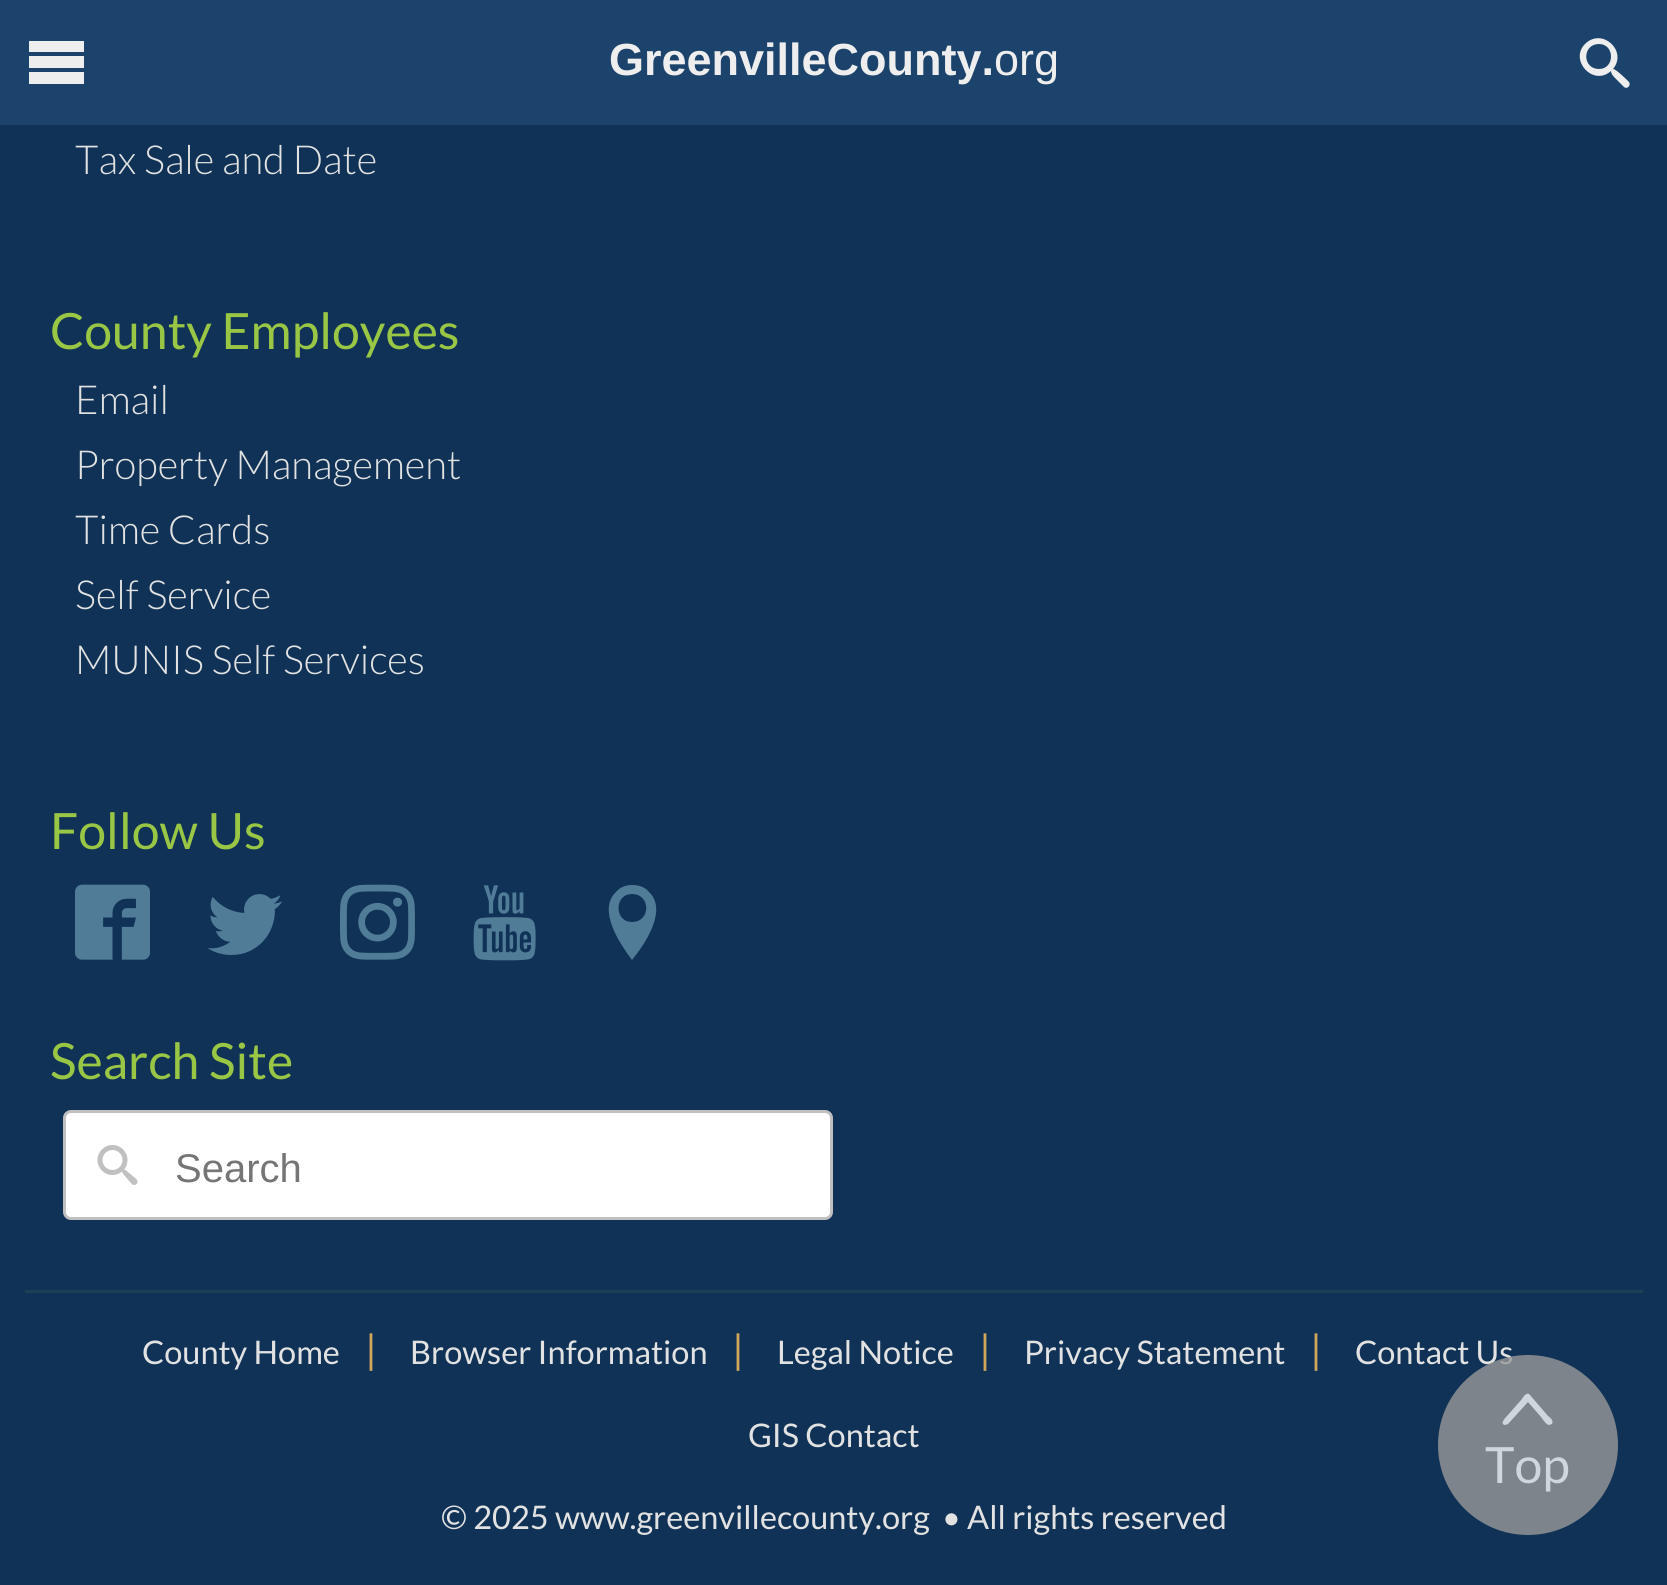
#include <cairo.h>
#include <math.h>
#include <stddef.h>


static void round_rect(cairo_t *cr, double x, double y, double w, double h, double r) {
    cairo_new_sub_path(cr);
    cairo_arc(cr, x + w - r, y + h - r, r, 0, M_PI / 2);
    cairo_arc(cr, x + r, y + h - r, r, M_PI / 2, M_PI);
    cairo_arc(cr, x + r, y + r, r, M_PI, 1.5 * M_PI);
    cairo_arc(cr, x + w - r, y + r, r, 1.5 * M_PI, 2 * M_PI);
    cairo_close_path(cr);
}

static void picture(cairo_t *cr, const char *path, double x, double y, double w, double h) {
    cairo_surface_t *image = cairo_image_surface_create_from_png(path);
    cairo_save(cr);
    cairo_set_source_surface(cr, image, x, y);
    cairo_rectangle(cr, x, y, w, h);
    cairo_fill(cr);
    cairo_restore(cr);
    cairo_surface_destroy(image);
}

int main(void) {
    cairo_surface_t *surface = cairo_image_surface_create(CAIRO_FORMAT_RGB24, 1667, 1585);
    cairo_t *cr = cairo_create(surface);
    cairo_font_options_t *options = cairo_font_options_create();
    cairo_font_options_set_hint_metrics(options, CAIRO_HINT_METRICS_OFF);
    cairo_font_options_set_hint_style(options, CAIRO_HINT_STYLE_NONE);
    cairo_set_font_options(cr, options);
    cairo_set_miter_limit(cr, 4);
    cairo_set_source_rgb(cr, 0.059, 0.196, 0.337);
    cairo_paint(cr);
    cairo_set_source_rgb(cr, 0.11, 0.263, 0.424);
    cairo_rectangle(cr, 0, 0, 1667, 125);
    cairo_fill(cr);
    cairo_set_source_rgb(cr, 0.933, 0.933, 0.933);
    cairo_new_path(cr);
    cairo_move_to(cr, 29, 41);
    cairo_line_to(cr, 84, 41);
    cairo_line_to(cr, 84, 52);
    cairo_line_to(cr, 29, 52);
    cairo_close_path(cr);
    cairo_move_to(cr, 29, 56);
    cairo_line_to(cr, 84, 56);
    cairo_line_to(cr, 84, 68);
    cairo_line_to(cr, 29, 68);
    cairo_close_path(cr);
    cairo_move_to(cr, 29, 72);
    cairo_line_to(cr, 84, 72);
    cairo_line_to(cr, 84, 84);
    cairo_line_to(cr, 29, 84);
    cairo_close_path(cr);
    cairo_fill(cr);
    cairo_select_font_face(cr, "Liberation Sans", CAIRO_FONT_SLANT_NORMAL, CAIRO_FONT_WEIGHT_BOLD);
    cairo_set_font_size(cr, 45);
    cairo_move_to(cr, 609, 75);
    cairo_show_text(cr, "GreenvilleCounty.");
    cairo_select_font_face(cr, "Liberation Sans", CAIRO_FONT_SLANT_NORMAL, CAIRO_FONT_WEIGHT_NORMAL);
    cairo_move_to(cr, 994, 75);
    cairo_show_text(cr, "org");
    cairo_new_path(cr);
    cairo_move_to(cr, 1628, 81);
    cairo_curve_to(cr, 1626, 79, 1616, 69, 1613, 69);
    cairo_curve_to(cr, 1628, 51, 1602, 27, 1585, 44);
    cairo_curve_to(cr, 1569, 60, 1593, 87, 1611, 71);
    cairo_curve_to(cr, 1611, 74, 1614, 77, 1616, 79);
    cairo_line_to(cr, 1624, 87);
    cairo_curve_to(cr, 1628, 90, 1632, 84, 1628, 81);
    cairo_close_path(cr);
    cairo_move_to(cr, 1599, 69);
    cairo_curve_to(cr, 1582, 69, 1582, 44, 1599, 44);
    cairo_curve_to(cr, 1615, 44, 1615, 69, 1599, 69);
    cairo_close_path(cr);
    cairo_fill(cr);
    cairo_select_font_face(cr, "Lato Light", CAIRO_FONT_SLANT_NORMAL, CAIRO_FONT_WEIGHT_NORMAL);
    cairo_set_font_size(cr, 40);
    cairo_set_source_rgb(cr, 0.886, 0.886, 0.886);
    cairo_move_to(cr, 75, 174);
    cairo_show_text(cr, "Tax Sale and Date");
    cairo_select_font_face(cr, "Lato", CAIRO_FONT_SLANT_NORMAL, CAIRO_FONT_WEIGHT_NORMAL);
    cairo_set_font_size(cr, 50);
    cairo_set_source_rgb(cr, 0.6, 0.78, 0.271);
    cairo_move_to(cr, 50, 349);
    cairo_show_text(cr, "County Employees");
    cairo_select_font_face(cr, "Lato Light", CAIRO_FONT_SLANT_NORMAL, CAIRO_FONT_WEIGHT_NORMAL);
    cairo_set_font_size(cr, 40);
    cairo_set_source_rgb(cr, 0.886, 0.886, 0.886);
    cairo_move_to(cr, 75, 414);
    cairo_show_text(cr, "Email");
    cairo_move_to(cr, 75, 479);
    cairo_show_text(cr, "Property Management");
    cairo_move_to(cr, 75, 544);
    cairo_show_text(cr, "Time Cards");
    cairo_move_to(cr, 75, 609);
    cairo_show_text(cr, "Self Service");
    cairo_move_to(cr, 75, 674);
    cairo_show_text(cr, "MUNIS Self Services");
    cairo_select_font_face(cr, "Lato", CAIRO_FONT_SLANT_NORMAL, CAIRO_FONT_WEIGHT_NORMAL);
    cairo_set_font_size(cr, 50);
    cairo_set_source_rgb(cr, 0.6, 0.78, 0.271);
    cairo_move_to(cr, 50, 849);
    cairo_show_text(cr, "Follow Us");
    picture(cr, "img1.png", 75, 884, 75, 76);
    picture(cr, "img2.png", 207, 894, 76, 61);
    picture(cr, "img3.png", 340, 884, 75, 76);
    picture(cr, "img4.png", 473, 885, 63, 76);
    cairo_set_source_rgb(cr, 0.314, 0.486, 0.596);
    cairo_new_path(cr);
    cairo_move_to(cr, 632, 885);
    cairo_curve_to(cr, 626, 885, 620, 887, 616, 892);
    cairo_curve_to(cr, 597, 910, 620, 944, 632, 960);
    cairo_curve_to(cr, 645, 944, 668, 910, 649, 892);
    cairo_curve_to(cr, 645, 887, 639, 885, 632, 885);
    cairo_close_path(cr);
    cairo_move_to(cr, 632, 922);
    cairo_curve_to(cr, 614, 922, 614, 894, 632, 894);
    cairo_curve_to(cr, 651, 894, 651, 922, 632, 922);
    cairo_close_path(cr);
    cairo_fill(cr);
    cairo_set_source_rgb(cr, 0.6, 0.78, 0.271);
    cairo_move_to(cr, 50, 1079);
    cairo_show_text(cr, "Search Site");
    cairo_set_source_rgb(cr, 1, 1, 1);
    round_rect(cr, 64.5, 1111.5, 767, 107, 6.5);
    cairo_fill_preserve(cr);
    cairo_set_source_rgb(cr, 0.753, 0.753, 0.753);
    cairo_set_line_width(cr, 3);
    cairo_stroke(cr);
    picture(cr, "img5.png", 97, 1145, 41, 40);
    cairo_select_font_face(cr, "Liberation Sans", CAIRO_FONT_SLANT_NORMAL, CAIRO_FONT_WEIGHT_NORMAL);
    cairo_set_font_size(cr, 40);
    cairo_set_source_rgb(cr, 0.459, 0.459, 0.459);
    cairo_move_to(cr, 175, 1182);
    cairo_show_text(cr, "Search");
    cairo_set_source_rgb(cr, 0.11, 0.251, 0.337);
    cairo_rectangle(cr, 25, 1290, 1618, 3);
    cairo_fill(cr);
    cairo_select_font_face(cr, "Lato", CAIRO_FONT_SLANT_NORMAL, CAIRO_FONT_WEIGHT_NORMAL);
    cairo_set_font_size(cr, 32.5);
    cairo_set_source_rgb(cr, 0.886, 0.886, 0.886);
    cairo_move_to(cr, 142, 1364);
    cairo_show_text(cr, "County Home");
    cairo_set_font_size(cr, 40);
    cairo_set_source_rgb(cr, 0.827, 0.655, 0.345);
    cairo_move_to(cr, 365, 1364);
    cairo_show_text(cr, "|");
    cairo_set_font_size(cr, 32.5);
    cairo_set_source_rgb(cr, 0.886, 0.886, 0.886);
    cairo_move_to(cr, 410, 1364);
    cairo_show_text(cr, "Browser Information");
    cairo_set_font_size(cr, 40);
    cairo_set_source_rgb(cr, 0.827, 0.655, 0.345);
    cairo_move_to(cr, 732, 1364);
    cairo_show_text(cr, "|");
    cairo_set_font_size(cr, 32.5);
    cairo_set_source_rgb(cr, 0.886, 0.886, 0.886);
    cairo_move_to(cr, 777, 1364);
    cairo_show_text(cr, "Legal Notice");
    cairo_set_font_size(cr, 40);
    cairo_set_source_rgb(cr, 0.827, 0.655, 0.345);
    cairo_move_to(cr, 979, 1364);
    cairo_show_text(cr, "|");
    cairo_set_font_size(cr, 32.5);
    cairo_set_source_rgb(cr, 0.886, 0.886, 0.886);
    cairo_move_to(cr, 1024, 1364);
    cairo_show_text(cr, "Privacy Statement");
    cairo_set_font_size(cr, 40);
    cairo_set_source_rgb(cr, 0.827, 0.655, 0.345);
    cairo_move_to(cr, 1310, 1364);
    cairo_show_text(cr, "|");
    cairo_set_font_size(cr, 32.5);
    cairo_set_source_rgb(cr, 0.886, 0.886, 0.886);
    cairo_move_to(cr, 1355, 1364);
    cairo_show_text(cr, "Contact Us");
    cairo_move_to(cr, 748, 1447);
    cairo_show_text(cr, "GIS Contact");
    cairo_move_to(cr, 441, 1529);
    cairo_show_text(cr, "© 2025 www.greenvillecounty.org");
    cairo_move_to(cr, 942, 1529);
    cairo_show_text(cr, "• All rights reserved");
    cairo_set_source_rgba(cr, 0.6, 0.6, 0.6, 0.8);
    cairo_new_path(cr);
    cairo_arc(cr, 1528, 1445, 90, 0, 2 * M_PI);
    cairo_fill(cr);
    cairo_set_source_rgb(cr, 0.812, 0.839, 0.867);
    cairo_new_path(cr);
    cairo_move_to(cr, 1549, 1425);
    cairo_curve_to(cr, 1546, 1425, 1542, 1418, 1541, 1417);
    cairo_line_to(cr, 1528, 1402);
    cairo_line_to(cr, 1508, 1424);
    cairo_line_to(cr, 1505, 1425);
    cairo_curve_to(cr, 1499, 1424, 1506, 1417, 1507, 1416);
    cairo_line_to(cr, 1522, 1399);
    cairo_curve_to(cr, 1523, 1397, 1527, 1391, 1530, 1395);
    cairo_line_to(cr, 1548, 1416);
    cairo_curve_to(cr, 1550, 1417, 1554, 1421, 1552, 1424);
    cairo_close_path(cr);
    cairo_fill(cr);
    cairo_set_font_size(cr, 50);
    cairo_move_to(cr, 1485, 1483);
    cairo_show_text(cr, "Top");
    cairo_surface_write_to_png(surface, "page.png");
    cairo_font_options_destroy(options);
    cairo_destroy(cr);
    cairo_surface_destroy(surface);
    return 0;
}
